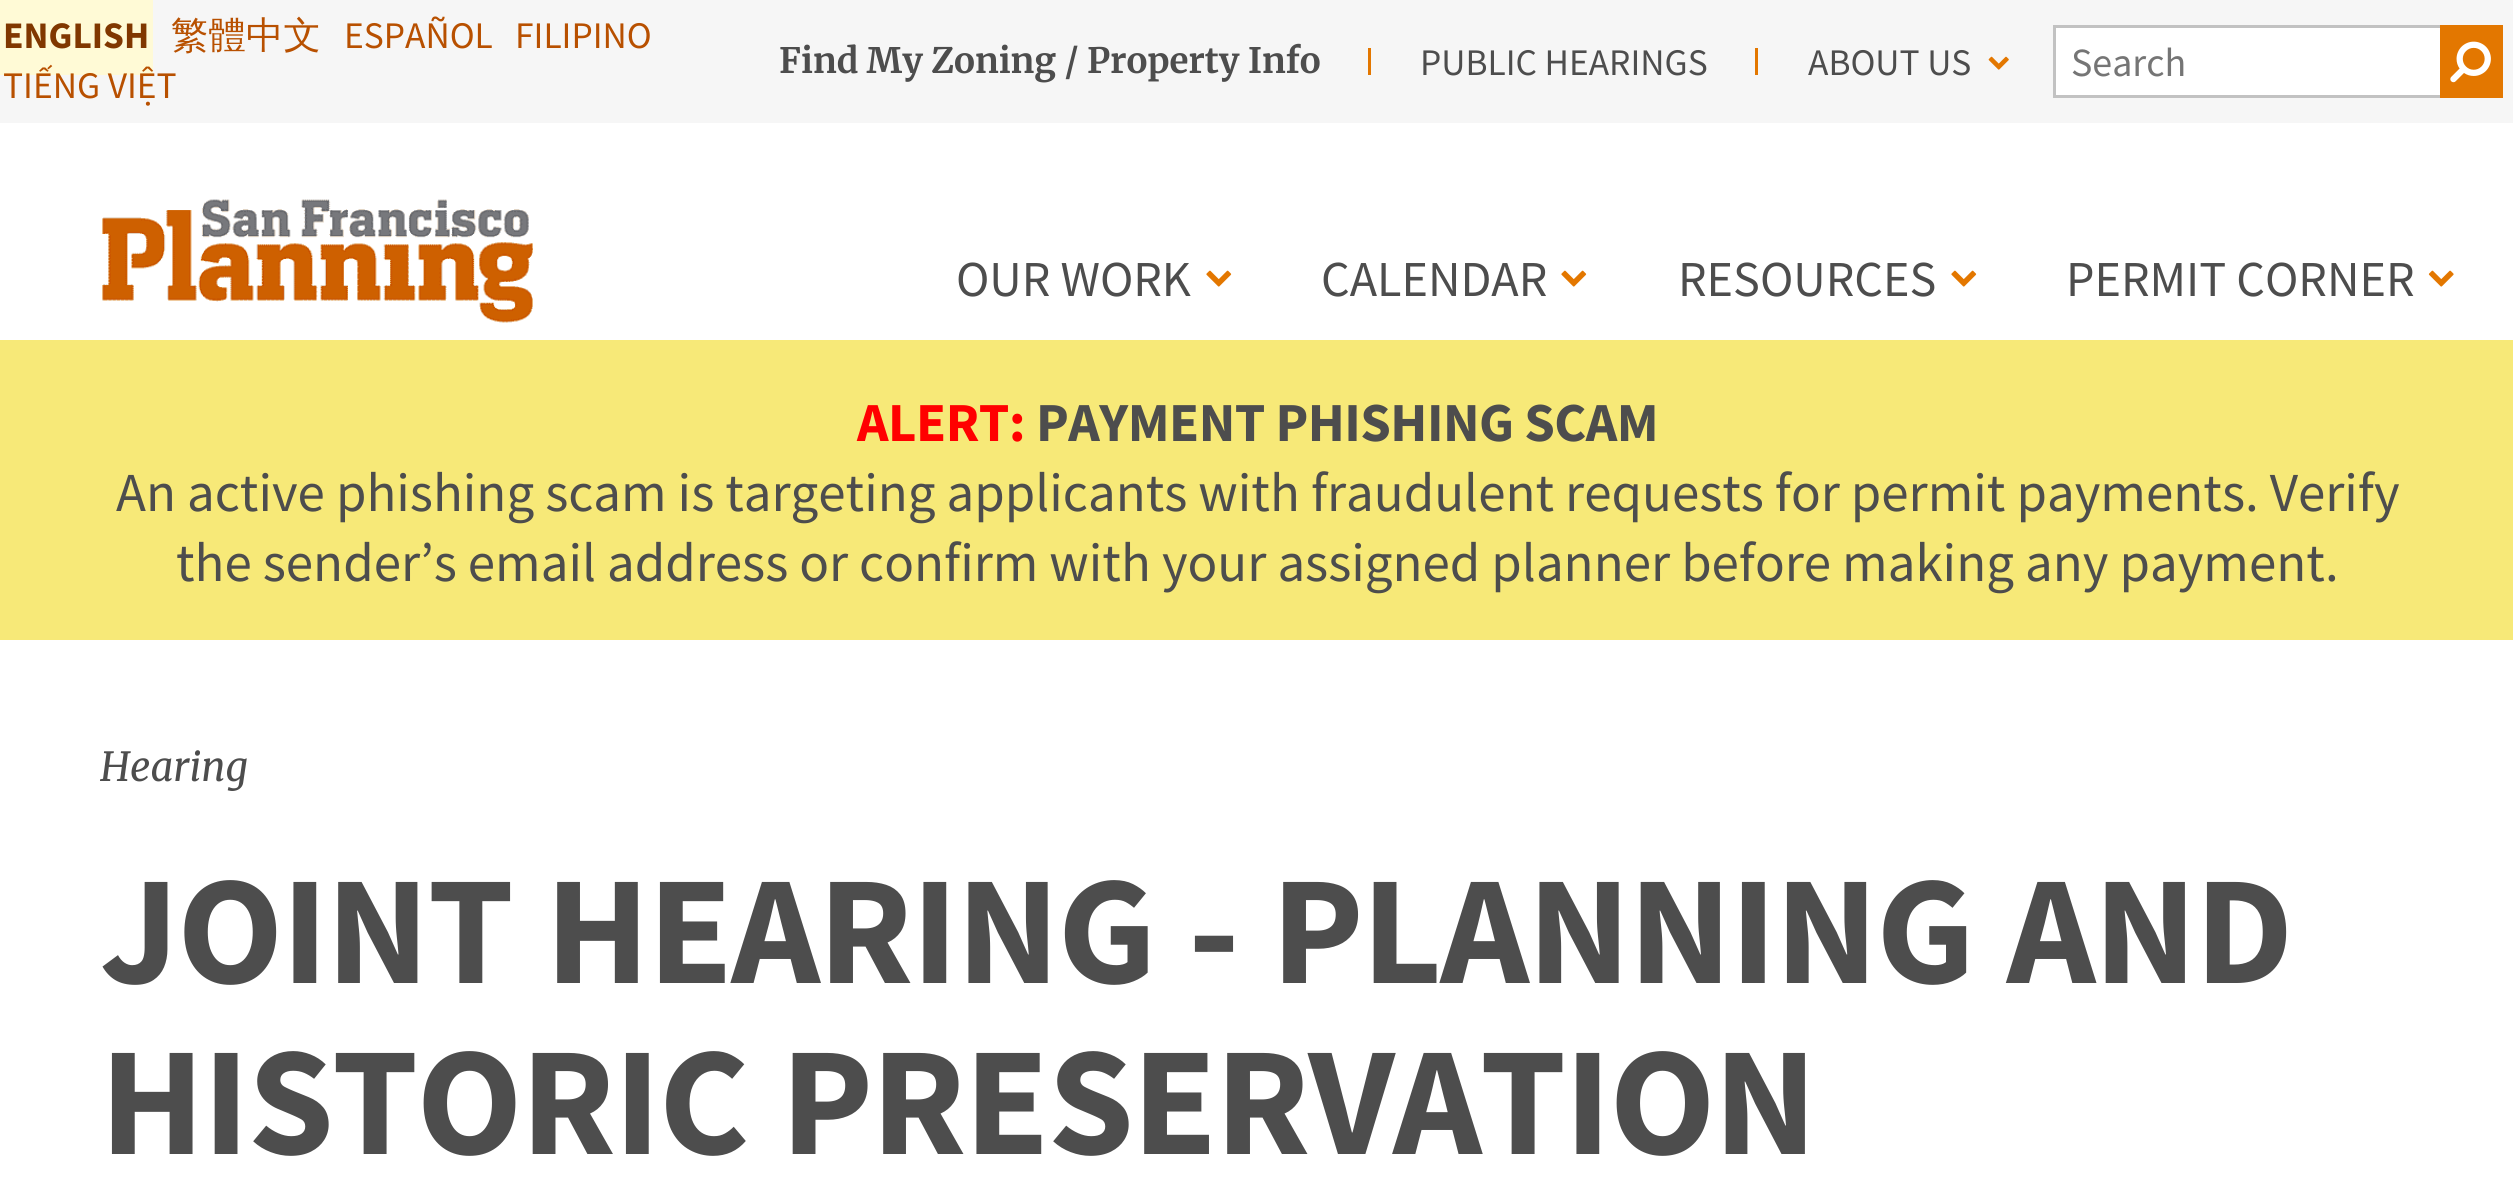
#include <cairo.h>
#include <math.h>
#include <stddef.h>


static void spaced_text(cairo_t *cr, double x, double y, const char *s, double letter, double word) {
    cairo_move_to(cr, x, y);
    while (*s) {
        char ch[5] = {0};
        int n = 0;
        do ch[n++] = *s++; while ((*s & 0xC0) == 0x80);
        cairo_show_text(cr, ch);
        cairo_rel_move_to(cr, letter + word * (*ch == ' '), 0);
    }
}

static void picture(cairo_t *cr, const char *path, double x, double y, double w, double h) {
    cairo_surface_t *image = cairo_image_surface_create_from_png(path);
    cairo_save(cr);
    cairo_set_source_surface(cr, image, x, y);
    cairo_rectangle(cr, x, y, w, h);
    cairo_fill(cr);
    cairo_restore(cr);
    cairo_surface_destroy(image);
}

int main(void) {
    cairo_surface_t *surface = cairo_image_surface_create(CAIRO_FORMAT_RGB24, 2513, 1201);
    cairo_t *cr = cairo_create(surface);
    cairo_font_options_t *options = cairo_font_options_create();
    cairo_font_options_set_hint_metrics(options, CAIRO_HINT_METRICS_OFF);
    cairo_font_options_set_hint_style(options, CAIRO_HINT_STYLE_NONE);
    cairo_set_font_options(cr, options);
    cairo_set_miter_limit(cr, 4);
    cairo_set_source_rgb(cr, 1, 1, 1);
    cairo_paint(cr);
    cairo_set_source_rgb(cr, 0.961, 0.961, 0.961);
    cairo_rectangle(cr, 0, 0, 2513, 123);
    cairo_fill(cr);
    cairo_set_source_rgb(cr, 1, 0.98, 0.839);
    cairo_rectangle(cr, 0, 0, 153, 75);
    cairo_fill(cr);
    cairo_select_font_face(cr, "Source Sans Pro", CAIRO_FONT_SLANT_NORMAL, CAIRO_FONT_WEIGHT_BOLD);
    cairo_set_font_size(cr, 37.5);
    cairo_set_source_rgb(cr, 0.502, 0.216, 0);
    cairo_move_to(cr, 3, 48);
    cairo_show_text(cr, "ENGLISH");
    cairo_select_font_face(cr, "WenQuanYi Zen Hei Medium", CAIRO_FONT_SLANT_NORMAL, CAIRO_FONT_WEIGHT_NORMAL);
    cairo_set_source_rgb(cr, 0.722, 0.314, 0);
    cairo_move_to(cr, 171, 48);
    cairo_show_text(cr, "繁體中文");
    cairo_select_font_face(cr, "Source Sans Pro", CAIRO_FONT_SLANT_NORMAL, CAIRO_FONT_WEIGHT_NORMAL);
    cairo_move_to(cr, 344, 48);
    cairo_show_text(cr, "ESPAÑOL");
    cairo_move_to(cr, 515, 48);
    cairo_show_text(cr, "FILIPINO");
    cairo_move_to(cr, 3, 98);
    cairo_show_text(cr, "TIẾNG VIỆT");
    cairo_select_font_face(cr, "Merriweather", CAIRO_FONT_SLANT_NORMAL, CAIRO_FONT_WEIGHT_BOLD);
    cairo_set_font_size(cr, 35);
    cairo_set_source_rgb(cr, 0.302, 0.302, 0.302);
    cairo_move_to(cr, 779, 73);
    cairo_show_text(cr, "Find My Zoning / Property Info");
    cairo_set_source_rgb(cr, 0.89, 0.467, 0);
    cairo_rectangle(cr, 1368, 48, 3, 27);
    cairo_fill(cr);
    cairo_select_font_face(cr, "Source Sans Pro", CAIRO_FONT_SLANT_NORMAL, CAIRO_FONT_WEIGHT_NORMAL);
    cairo_set_font_size(cr, 37.5);
    cairo_set_source_rgb(cr, 0.302, 0.302, 0.302);
    cairo_move_to(cr, 1420, 75);
    cairo_show_text(cr, "PUBLIC HEARINGS");
    cairo_set_source_rgb(cr, 0.89, 0.467, 0);
    cairo_rectangle(cr, 1755, 48, 3, 27);
    cairo_fill(cr);
    cairo_set_source_rgb(cr, 0.302, 0.302, 0.302);
    cairo_move_to(cr, 1808, 75);
    cairo_show_text(cr, "ABOUT US");
    picture(cr, "img1.png", 1988, 56, 21, 14);
    cairo_set_source_rgb(cr, 1, 1, 1);
    cairo_rectangle(cr, 2056, 28, 384, 67);
    cairo_fill(cr);
    cairo_set_source_rgb(cr, 0.761, 0.761, 0.761);
    cairo_rectangle(cr, 2053, 25, 387, 3);
    cairo_fill(cr);
    cairo_rectangle(cr, 2053, 95, 387, 3);
    cairo_fill(cr);
    cairo_rectangle(cr, 2053, 25, 3, 73);
    cairo_fill(cr);
    cairo_set_font_size(cr, 40);
    cairo_set_source_rgb(cr, 0.459, 0.459, 0.459);
    cairo_move_to(cr, 2071, 76);
    cairo_show_text(cr, "Search");
    cairo_set_source_rgb(cr, 0.89, 0.467, 0);
    cairo_rectangle(cr, 2440, 25, 63, 73);
    cairo_fill(cr);
    picture(cr, "img2.png", 2450, 41, 41, 42);
    picture(cr, "img3.png", 102, 199, 431, 124);
    cairo_set_font_size(cr, 50.25);
    cairo_set_source_rgb(cr, 0.302, 0.302, 0.302);
    cairo_move_to(cr, 956, 296);
    cairo_show_text(cr, "OUR WORK");
    picture(cr, "img4.png", 1206, 270, 26, 17);
    cairo_move_to(cr, 1321, 296);
    cairo_show_text(cr, "CALENDAR");
    picture(cr, "img4.png", 1561, 270, 26, 17);
    cairo_move_to(cr, 1678, 296);
    cairo_show_text(cr, "RESOURCES");
    picture(cr, "img4.png", 1951, 270, 26, 17);
    cairo_move_to(cr, 2066, 296);
    cairo_show_text(cr, "PERMIT CORNER");
    picture(cr, "img5.png", 2428, 270, 26, 17);
    cairo_set_source_rgb(cr, 0.965, 0.914, 0.471);
    cairo_rectangle(cr, 0, 340, 2513, 300);
    cairo_fill(cr);
    cairo_select_font_face(cr, "Source Sans Pro", CAIRO_FONT_SLANT_NORMAL, CAIRO_FONT_WEIGHT_BOLD);
    cairo_set_font_size(cr, 55);
    cairo_set_source_rgb(cr, 1, 0, 0);
    spaced_text(cr, 857, 441, "ALERT:", -0.5, 0);
    cairo_set_source_rgb(cr, 0.302, 0.302, 0.302);
    spaced_text(cr, 1036, 441, "PAYMENT PHISHING SCAM", -0.5, 0);
    cairo_select_font_face(cr, "Source Sans Pro", CAIRO_FONT_SLANT_NORMAL, CAIRO_FONT_WEIGHT_NORMAL);
    cairo_move_to(cr, 116, 511);
    cairo_show_text(cr, "An active phishing scam is targeting applicants with fraudulent requests for permit payments. Verify");
    cairo_move_to(cr, 176, 581);
    cairo_show_text(cr, "the sender’s email address or confirm with your assigned planner before making any payment.");
    cairo_select_font_face(cr, "Merriweather", CAIRO_FONT_SLANT_ITALIC, CAIRO_FONT_WEIGHT_NORMAL);
    cairo_set_font_size(cr, 40);
    cairo_move_to(cr, 100, 781);
    cairo_show_text(cr, "Hearing");
    cairo_select_font_face(cr, "Source Sans Pro", CAIRO_FONT_SLANT_NORMAL, CAIRO_FONT_WEIGHT_BOLD);
    cairo_set_font_size(cr, 155);
    spaced_text(cr, 100, 983, "JOINT HEARING - PLANNING AND", -1.75, 4);
    spaced_text(cr, 100, 1154, "HISTORIC PRESERVATION", -1.75, 4);
    cairo_surface_write_to_png(surface, "page.png");
    cairo_font_options_destroy(options);
    cairo_destroy(cr);
    cairo_surface_destroy(surface);
    return 0;
}
